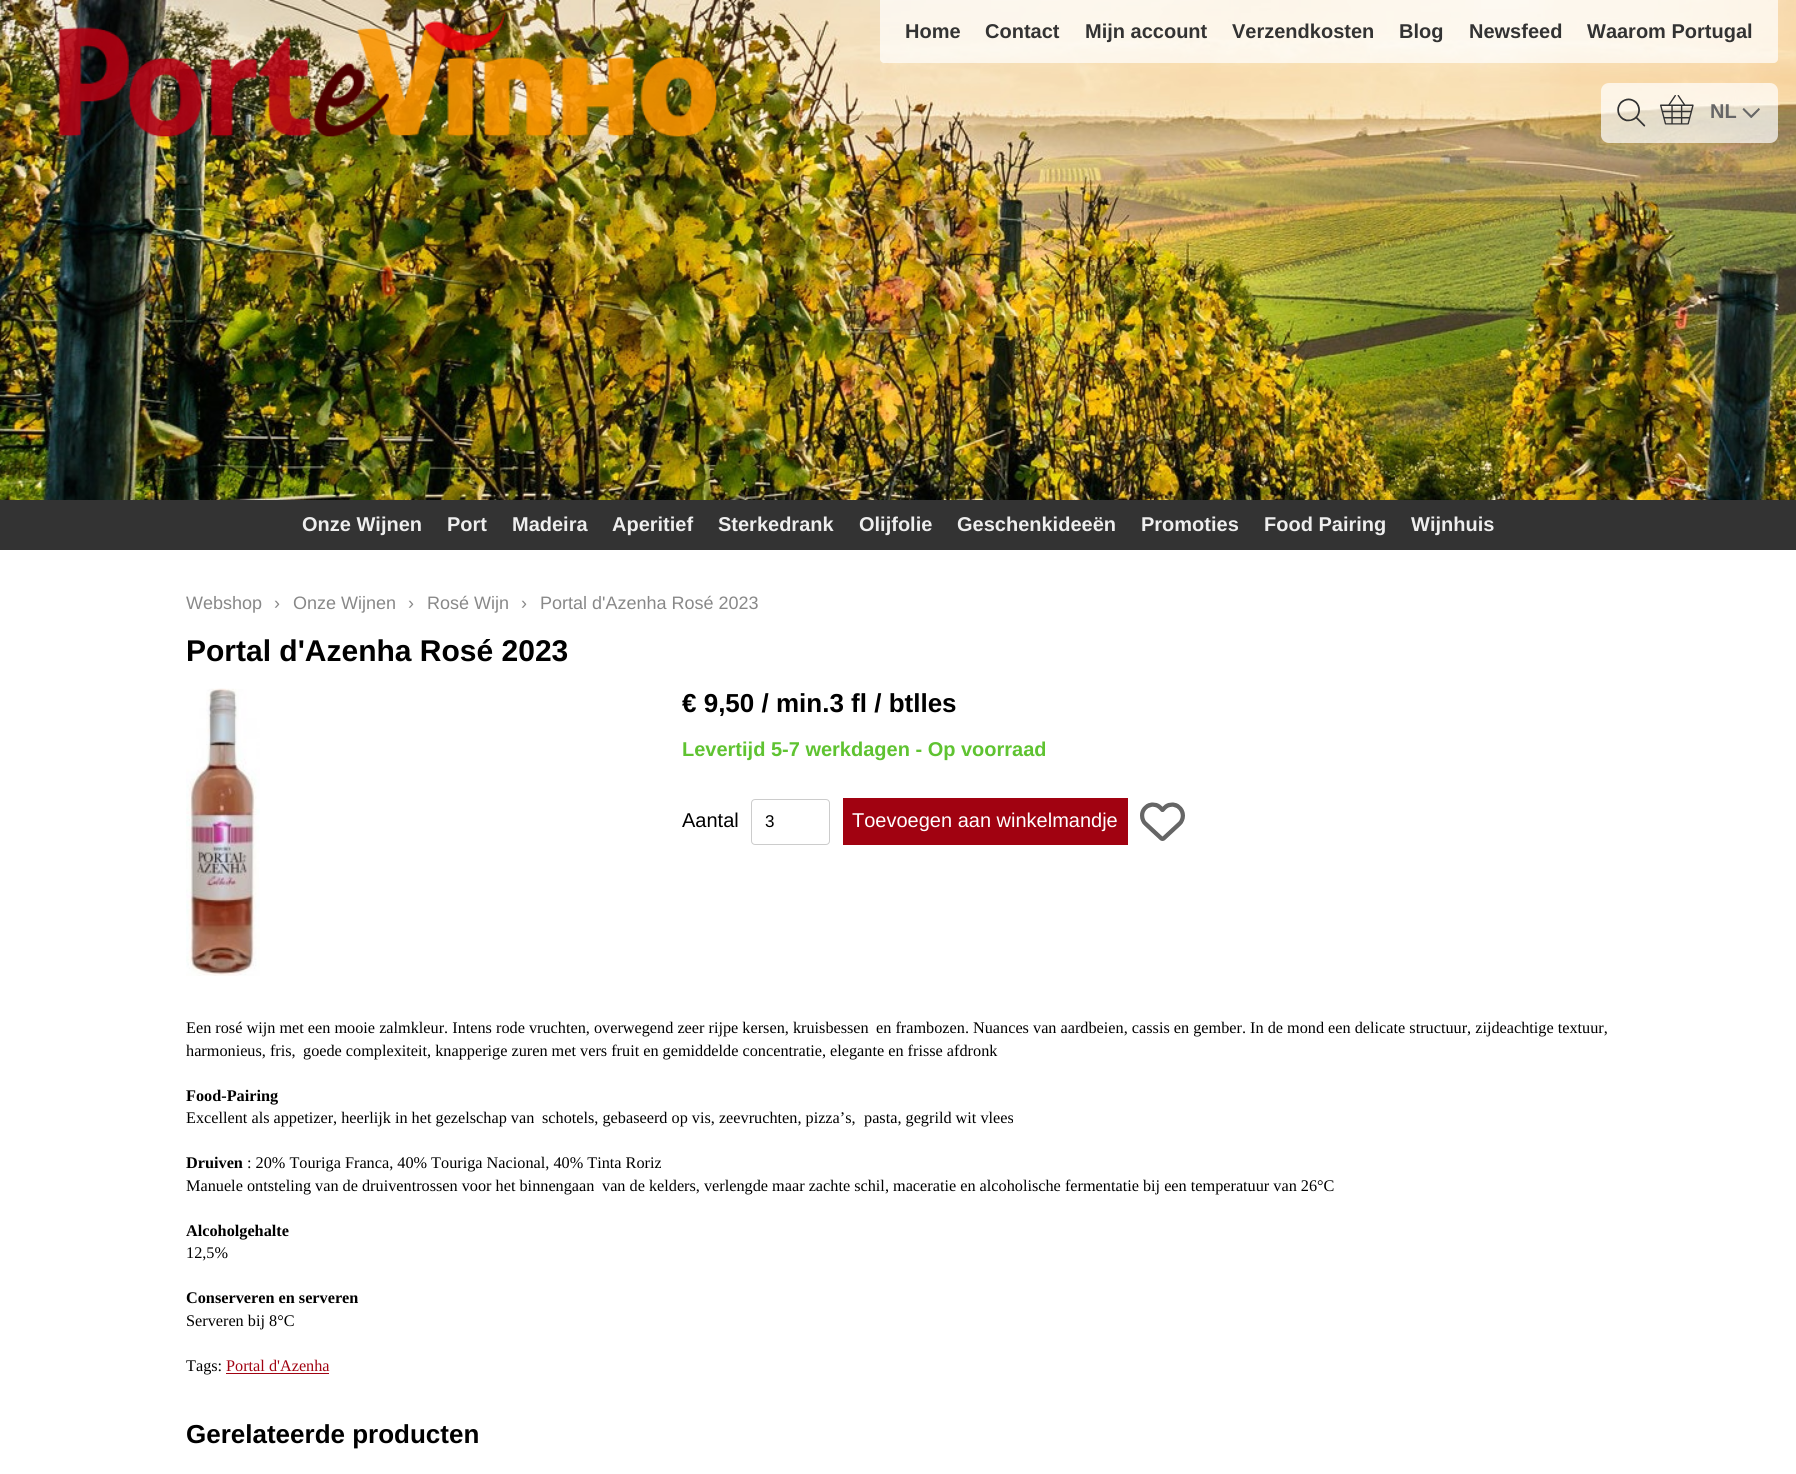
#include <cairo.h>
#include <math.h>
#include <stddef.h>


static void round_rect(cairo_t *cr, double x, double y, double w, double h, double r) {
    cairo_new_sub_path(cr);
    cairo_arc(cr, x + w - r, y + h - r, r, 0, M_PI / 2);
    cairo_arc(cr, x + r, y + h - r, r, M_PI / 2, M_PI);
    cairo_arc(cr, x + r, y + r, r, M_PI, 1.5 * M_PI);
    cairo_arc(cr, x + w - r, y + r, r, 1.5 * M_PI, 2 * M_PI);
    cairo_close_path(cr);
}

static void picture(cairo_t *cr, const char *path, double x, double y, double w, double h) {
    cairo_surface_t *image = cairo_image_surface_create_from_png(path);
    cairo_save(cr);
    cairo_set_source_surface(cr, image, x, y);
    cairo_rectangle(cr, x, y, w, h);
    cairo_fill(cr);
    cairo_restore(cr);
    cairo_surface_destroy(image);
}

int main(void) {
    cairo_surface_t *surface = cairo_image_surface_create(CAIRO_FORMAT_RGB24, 1796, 1474);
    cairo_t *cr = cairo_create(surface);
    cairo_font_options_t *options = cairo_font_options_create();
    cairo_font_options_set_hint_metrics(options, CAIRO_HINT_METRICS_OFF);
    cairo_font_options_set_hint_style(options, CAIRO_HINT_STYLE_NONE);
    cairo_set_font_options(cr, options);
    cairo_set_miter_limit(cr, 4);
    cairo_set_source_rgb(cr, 1, 1, 1);
    cairo_paint(cr);
    picture(cr, "img1.png", 0, 0, 1796, 500);
    picture(cr, "img2.png", 58, 12, 659, 125);
    cairo_set_source_rgba(cr, 1, 1, 1, 0.7);
    cairo_new_path(cr);
    cairo_move_to(cr, 880, 0);
    cairo_line_to(cr, 1778, 0);
    cairo_line_to(cr, 1778, 59);
    cairo_curve_to(cr, 1778, 61, 1776, 63, 1774, 63);
    cairo_line_to(cr, 884, 63);
    cairo_curve_to(cr, 882, 63, 880, 61, 880, 59);
    cairo_close_path(cr);
    cairo_fill(cr);
    cairo_select_font_face(cr, "Liberation Sans", CAIRO_FONT_SLANT_NORMAL, CAIRO_FONT_WEIGHT_BOLD);
    cairo_set_font_size(cr, 20);
    cairo_set_source_rgb(cr, 0.2, 0.2, 0.2);
    cairo_move_to(cr, 905, 38);
    cairo_show_text(cr, "Home");
    cairo_move_to(cr, 985, 38);
    cairo_show_text(cr, "Contact");
    cairo_move_to(cr, 1085, 38);
    cairo_show_text(cr, "Mijn account");
    cairo_move_to(cr, 1232, 38);
    cairo_show_text(cr, "Verzendkosten");
    cairo_move_to(cr, 1399, 38);
    cairo_show_text(cr, "Blog");
    cairo_move_to(cr, 1469, 38);
    cairo_show_text(cr, "Newsfeed");
    cairo_move_to(cr, 1587, 38);
    cairo_show_text(cr, "Waarom Portugal");
    cairo_set_source_rgba(cr, 1, 1, 1, 0.7);
    round_rect(cr, 1601, 83, 177, 60, 8);
    cairo_fill(cr);
    picture(cr, "img3.png", 1617, 98, 29, 29);
    picture(cr, "img4.png", 1660, 95, 34, 30);
    cairo_set_source_rgb(cr, 0.4, 0.4, 0.4);
    cairo_move_to(cr, 1710, 118);
    cairo_show_text(cr, "NL");
    picture(cr, "img5.png", 1742, 108, 18, 10);
    cairo_set_source_rgb(cr, 0.2, 0.2, 0.2);
    cairo_rectangle(cr, 0, 500, 1796, 50);
    cairo_fill(cr);
    cairo_set_source_rgb(cr, 0.933, 0.933, 0.933);
    cairo_move_to(cr, 302, 531);
    cairo_show_text(cr, "Onze Wijnen");
    cairo_move_to(cr, 447, 531);
    cairo_show_text(cr, "Port");
    cairo_move_to(cr, 512, 531);
    cairo_show_text(cr, "Madeira");
    cairo_move_to(cr, 612, 531);
    cairo_show_text(cr, "Aperitief");
    cairo_move_to(cr, 718, 531);
    cairo_show_text(cr, "Sterkedrank");
    cairo_move_to(cr, 859, 531);
    cairo_show_text(cr, "Olijfolie");
    cairo_move_to(cr, 957, 531);
    cairo_show_text(cr, "Geschenkideeën");
    cairo_move_to(cr, 1141, 531);
    cairo_show_text(cr, "Promoties");
    cairo_move_to(cr, 1264, 531);
    cairo_show_text(cr, "Food Pairing");
    cairo_move_to(cr, 1411, 531);
    cairo_show_text(cr, "Wijnhuis");
    cairo_select_font_face(cr, "Liberation Sans", CAIRO_FONT_SLANT_NORMAL, CAIRO_FONT_WEIGHT_NORMAL);
    cairo_set_font_size(cr, 18);
    cairo_set_source_rgb(cr, 0.533, 0.533, 0.533);
    cairo_move_to(cr, 186, 609);
    cairo_show_text(cr, "Webshop");
    cairo_move_to(cr, 274, 609);
    cairo_show_text(cr, "›");
    cairo_move_to(cr, 293, 609);
    cairo_show_text(cr, "Onze Wijnen");
    cairo_move_to(cr, 408, 609);
    cairo_show_text(cr, "›");
    cairo_move_to(cr, 427, 609);
    cairo_show_text(cr, "Rosé Wijn");
    cairo_move_to(cr, 521, 609);
    cairo_show_text(cr, "›");
    cairo_move_to(cr, 540, 609);
    cairo_show_text(cr, "Portal d'Azenha Rosé 2023");
    cairo_select_font_face(cr, "Liberation Sans", CAIRO_FONT_SLANT_NORMAL, CAIRO_FONT_WEIGHT_BOLD);
    cairo_set_font_size(cr, 30);
    cairo_set_source_rgb(cr, 0, 0, 0);
    cairo_move_to(cr, 186, 661);
    cairo_show_text(cr, "Portal d'Azenha Rosé 2023");
    picture(cr, "img6.png", 186, 688, 74, 288);
    cairo_set_font_size(cr, 26);
    cairo_move_to(cr, 682, 712);
    cairo_show_text(cr, "€ 9,50 / min.3 fl / btlles");
    cairo_set_font_size(cr, 20);
    cairo_set_source_rgb(cr, 0.373, 0.765, 0.192);
    cairo_move_to(cr, 682, 756);
    cairo_show_text(cr, "Levertijd 5-7 werkdagen - Op voorraad");
    cairo_select_font_face(cr, "Liberation Sans", CAIRO_FONT_SLANT_NORMAL, CAIRO_FONT_WEIGHT_NORMAL);
    cairo_set_source_rgb(cr, 0, 0, 0);
    cairo_move_to(cr, 682, 827);
    cairo_show_text(cr, "Aantal");
    round_rect(cr, 751.5, 799.5, 78, 45, 3.5);
    cairo_set_source_rgb(cr, 0.8, 0.8, 0.8);
    cairo_set_line_width(cr, 1);
    cairo_stroke(cr);
    cairo_set_font_size(cr, 17);
    cairo_set_source_rgb(cr, 0, 0, 0);
    cairo_move_to(cr, 765, 827);
    cairo_show_text(cr, "3");
    cairo_set_source_rgb(cr, 0.631, 0.008, 0.067);
    cairo_rectangle(cr, 843, 798, 285, 47);
    cairo_fill(cr);
    cairo_set_font_size(cr, 20);
    cairo_set_source_rgb(cr, 1, 1, 1);
    cairo_move_to(cr, 852, 827);
    cairo_show_text(cr, "Toevoegen aan winkelmandje");
    picture(cr, "img7.png", 1140, 802, 45, 39);
    cairo_select_font_face(cr, "Liberation Serif", CAIRO_FONT_SLANT_NORMAL, CAIRO_FONT_WEIGHT_NORMAL);
    cairo_set_font_size(cr, 16.25);
    cairo_set_source_rgb(cr, 0, 0, 0);
    cairo_move_to(cr, 186, 1033);
    cairo_show_text(cr, "Een rosé wijn met een mooie zalmkleur. Intens rode vruchten, overwegend zeer rijpe kersen, kruisbessen");
    cairo_move_to(cr, 876, 1033);
    cairo_show_text(cr, "en frambozen. Nuances van aardbeien, cassis en gember. In de mond een delicate structuur, zijdeachtige textuur,");
    cairo_move_to(cr, 186, 1056);
    cairo_show_text(cr, "harmonieus, fris,");
    cairo_move_to(cr, 303, 1056);
    cairo_show_text(cr, "goede complexiteit, knapperige zuren met vers fruit en gemiddelde concentratie, elegante en frisse afdronk");
    cairo_select_font_face(cr, "Liberation Serif", CAIRO_FONT_SLANT_NORMAL, CAIRO_FONT_WEIGHT_BOLD);
    cairo_move_to(cr, 186, 1101);
    cairo_show_text(cr, "Food-Pairing");
    cairo_select_font_face(cr, "Liberation Serif", CAIRO_FONT_SLANT_NORMAL, CAIRO_FONT_WEIGHT_NORMAL);
    cairo_move_to(cr, 186, 1123);
    cairo_show_text(cr, "Excellent als appetizer, heerlijk in het gezelschap van");
    cairo_move_to(cr, 542, 1123);
    cairo_show_text(cr, "schotels, gebaseerd op vis, zeevruchten, pizza’s,");
    cairo_move_to(cr, 864, 1123);
    cairo_show_text(cr, "pasta, gegrild wit vlees");
    cairo_select_font_face(cr, "Liberation Serif", CAIRO_FONT_SLANT_NORMAL, CAIRO_FONT_WEIGHT_BOLD);
    cairo_move_to(cr, 186, 1168);
    cairo_show_text(cr, "Druiven");
    cairo_select_font_face(cr, "Liberation Serif", CAIRO_FONT_SLANT_NORMAL, CAIRO_FONT_WEIGHT_NORMAL);
    cairo_move_to(cr, 247, 1168);
    cairo_show_text(cr, ": 20% Touriga Franca, 40% Touriga Nacional, 40% Tinta Roriz");
    cairo_move_to(cr, 186, 1191);
    cairo_show_text(cr, "Manuele ontsteling van de druiventrossen voor het binnengaan");
    cairo_move_to(cr, 602, 1191);
    cairo_show_text(cr, "van de kelders, verlengde maar zachte schil, maceratie en alcoholische fermentatie bij een temperatuur van 26°C");
    cairo_select_font_face(cr, "Liberation Serif", CAIRO_FONT_SLANT_NORMAL, CAIRO_FONT_WEIGHT_BOLD);
    cairo_move_to(cr, 186, 1236);
    cairo_show_text(cr, "Alcoholgehalte");
    cairo_select_font_face(cr, "Liberation Serif", CAIRO_FONT_SLANT_NORMAL, CAIRO_FONT_WEIGHT_NORMAL);
    cairo_move_to(cr, 186, 1258);
    cairo_show_text(cr, "12,5%");
    cairo_select_font_face(cr, "Liberation Serif", CAIRO_FONT_SLANT_NORMAL, CAIRO_FONT_WEIGHT_BOLD);
    cairo_move_to(cr, 186, 1303);
    cairo_show_text(cr, "Conserveren en serveren");
    cairo_select_font_face(cr, "Liberation Serif", CAIRO_FONT_SLANT_NORMAL, CAIRO_FONT_WEIGHT_NORMAL);
    cairo_move_to(cr, 186, 1326);
    cairo_show_text(cr, "Serveren bij 8°C");
    cairo_move_to(cr, 186, 1371);
    cairo_show_text(cr, "Tags:");
    cairo_set_source_rgb(cr, 0.631, 0.008, 0.067);
    cairo_move_to(cr, 226, 1371);
    cairo_show_text(cr, "Portal d'Azenha");
    cairo_rectangle(cr, 226, 1373, 103, 1);
    cairo_fill(cr);
    cairo_select_font_face(cr, "Liberation Sans", CAIRO_FONT_SLANT_NORMAL, CAIRO_FONT_WEIGHT_BOLD);
    cairo_set_font_size(cr, 26);
    cairo_set_source_rgb(cr, 0, 0, 0);
    cairo_move_to(cr, 186, 1443);
    cairo_show_text(cr, "Gerelateerde producten");
    cairo_surface_write_to_png(surface, "page.png");
    cairo_font_options_destroy(options);
    cairo_destroy(cr);
    cairo_surface_destroy(surface);
    return 0;
}
